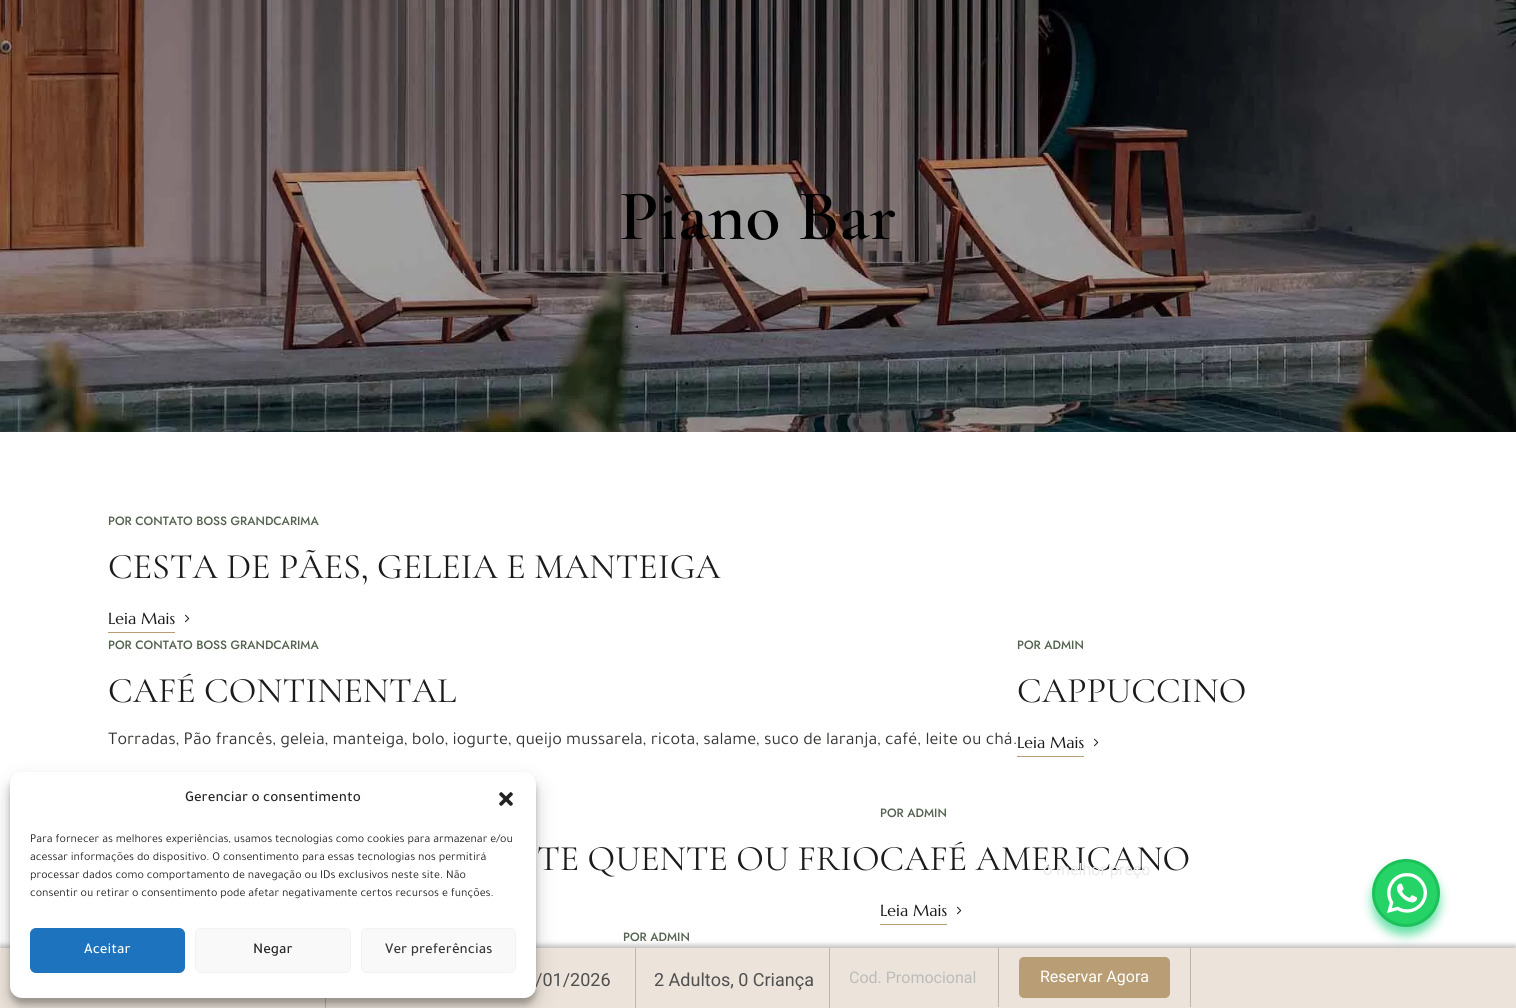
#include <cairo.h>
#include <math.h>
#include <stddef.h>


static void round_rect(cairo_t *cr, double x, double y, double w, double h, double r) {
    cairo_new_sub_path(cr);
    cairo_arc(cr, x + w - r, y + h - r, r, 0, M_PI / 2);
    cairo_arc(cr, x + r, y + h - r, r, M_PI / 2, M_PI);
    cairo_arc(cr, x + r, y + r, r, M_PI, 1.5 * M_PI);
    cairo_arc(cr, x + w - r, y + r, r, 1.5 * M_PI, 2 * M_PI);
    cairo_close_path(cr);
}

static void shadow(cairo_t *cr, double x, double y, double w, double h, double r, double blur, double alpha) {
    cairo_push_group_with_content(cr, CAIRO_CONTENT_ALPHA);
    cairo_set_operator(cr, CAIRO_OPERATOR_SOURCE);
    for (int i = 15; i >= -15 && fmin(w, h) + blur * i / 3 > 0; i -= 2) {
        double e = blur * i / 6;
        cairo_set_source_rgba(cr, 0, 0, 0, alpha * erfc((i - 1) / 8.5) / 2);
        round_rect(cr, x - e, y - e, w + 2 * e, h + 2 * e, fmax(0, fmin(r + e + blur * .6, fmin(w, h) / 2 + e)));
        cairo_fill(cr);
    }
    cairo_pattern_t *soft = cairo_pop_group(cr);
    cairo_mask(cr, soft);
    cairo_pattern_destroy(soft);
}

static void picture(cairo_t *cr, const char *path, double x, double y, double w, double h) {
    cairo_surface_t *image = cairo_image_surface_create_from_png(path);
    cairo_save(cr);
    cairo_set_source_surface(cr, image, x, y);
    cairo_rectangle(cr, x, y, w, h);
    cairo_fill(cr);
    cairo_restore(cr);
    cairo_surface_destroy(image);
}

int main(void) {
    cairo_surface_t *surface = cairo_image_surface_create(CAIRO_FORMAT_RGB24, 1516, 1008);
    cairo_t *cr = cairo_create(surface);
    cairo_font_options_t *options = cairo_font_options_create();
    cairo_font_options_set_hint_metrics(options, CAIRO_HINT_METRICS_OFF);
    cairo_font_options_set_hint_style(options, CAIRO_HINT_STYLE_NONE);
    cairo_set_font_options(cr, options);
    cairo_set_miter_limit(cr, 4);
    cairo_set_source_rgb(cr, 1, 1, 1);
    cairo_paint(cr);
    picture(cr, "img1.png", 0, 0, 1516, 432);
    cairo_select_font_face(cr, "Cormorant Garamond SemiBold", CAIRO_FONT_SLANT_NORMAL, CAIRO_FONT_WEIGHT_NORMAL);
    cairo_set_font_size(cr, 72);
    cairo_set_source_rgb(cr, 0, 0, 0);
    cairo_move_to(cr, 619, 239);
    cairo_show_text(cr, "Piano Bar");
    cairo_select_font_face(cr, "Jost Medium", CAIRO_FONT_SLANT_NORMAL, CAIRO_FONT_WEIGHT_NORMAL);
    cairo_set_font_size(cr, 12);
    cairo_set_source_rgb(cr, 0.325, 0.384, 0.306);
    cairo_move_to(cr, 108, 525);
    cairo_show_text(cr, "POR CONTATO BOSS GRANDCARIMA");
    cairo_select_font_face(cr, "Cormorant Garamond", CAIRO_FONT_SLANT_NORMAL, CAIRO_FONT_WEIGHT_NORMAL);
    cairo_set_font_size(cr, 36);
    cairo_set_source_rgb(cr, 0.102, 0.106, 0.102);
    cairo_move_to(cr, 108, 578);
    cairo_show_text(cr, "CESTA DE PÃES, GELEIA E MANTEIGA");
    cairo_select_font_face(cr, "Marcellus", CAIRO_FONT_SLANT_NORMAL, CAIRO_FONT_WEIGHT_NORMAL);
    cairo_set_font_size(cr, 16);
    cairo_move_to(cr, 108, 624);
    cairo_show_text(cr, "Leia Mais");
    picture(cr, "img2.png", 185, 614, 5, 9);
    cairo_set_source_rgb(cr, 0.725, 0.616, 0.459);
    cairo_rectangle(cr, 108, 632, 67, 1);
    cairo_fill(cr);
    cairo_select_font_face(cr, "Jost Medium", CAIRO_FONT_SLANT_NORMAL, CAIRO_FONT_WEIGHT_NORMAL);
    cairo_set_font_size(cr, 12);
    cairo_set_source_rgb(cr, 0.325, 0.384, 0.306);
    cairo_move_to(cr, 108, 649);
    cairo_show_text(cr, "POR CONTATO BOSS GRANDCARIMA");
    cairo_select_font_face(cr, "Cormorant Garamond", CAIRO_FONT_SLANT_NORMAL, CAIRO_FONT_WEIGHT_NORMAL);
    cairo_set_font_size(cr, 36);
    cairo_set_source_rgb(cr, 0.102, 0.106, 0.102);
    cairo_move_to(cr, 108, 702);
    cairo_show_text(cr, "CAFÉ CONTINENTAL");
    cairo_select_font_face(cr, "Tajawal", CAIRO_FONT_SLANT_NORMAL, CAIRO_FONT_WEIGHT_NORMAL);
    cairo_set_font_size(cr, 18);
    cairo_set_source_rgb(cr, 0.2, 0.212, 0.196);
    cairo_move_to(cr, 108, 744);
    cairo_show_text(cr, "Torradas, Pão francês, geleia, manteiga, bolo, iogurte, queijo mussarela, ricota, salame, suco de laranja, café, leite ou chá.");
    cairo_select_font_face(cr, "Jost Medium", CAIRO_FONT_SLANT_NORMAL, CAIRO_FONT_WEIGHT_NORMAL);
    cairo_set_font_size(cr, 12);
    cairo_set_source_rgb(cr, 0.325, 0.384, 0.306);
    cairo_move_to(cr, 1017, 649);
    cairo_show_text(cr, "POR ADMIN");
    cairo_select_font_face(cr, "Cormorant Garamond", CAIRO_FONT_SLANT_NORMAL, CAIRO_FONT_WEIGHT_NORMAL);
    cairo_set_font_size(cr, 36);
    cairo_set_source_rgb(cr, 0.102, 0.106, 0.102);
    cairo_move_to(cr, 1017, 702);
    cairo_show_text(cr, "CAPPUCCINO");
    cairo_select_font_face(cr, "Marcellus", CAIRO_FONT_SLANT_NORMAL, CAIRO_FONT_WEIGHT_NORMAL);
    cairo_set_font_size(cr, 16);
    cairo_move_to(cr, 1017, 748);
    cairo_show_text(cr, "Leia Mais");
    picture(cr, "img2.png", 1094, 738, 5, 9);
    cairo_set_source_rgb(cr, 0.725, 0.616, 0.459);
    cairo_rectangle(cr, 1017, 756, 67, 1);
    cairo_fill(cr);
    cairo_select_font_face(cr, "Jost Medium", CAIRO_FONT_SLANT_NORMAL, CAIRO_FONT_WEIGHT_NORMAL);
    cairo_set_font_size(cr, 12);
    cairo_set_source_rgb(cr, 0.325, 0.384, 0.306);
    cairo_move_to(cr, 880, 817);
    cairo_show_text(cr, "POR ADMIN");
    cairo_select_font_face(cr, "Marcellus", CAIRO_FONT_SLANT_NORMAL, CAIRO_FONT_WEIGHT_NORMAL);
    cairo_set_font_size(cr, 16);
    cairo_set_source_rgb(cr, 0.102, 0.106, 0.102);
    cairo_move_to(cr, 880, 916);
    cairo_show_text(cr, "Leia Mais");
    picture(cr, "img2.png", 957, 906, 5, 9);
    cairo_set_source_rgb(cr, 0.725, 0.616, 0.459);
    cairo_rectangle(cr, 880, 924, 67, 1);
    cairo_fill(cr);
    cairo_select_font_face(cr, "Cormorant Garamond", CAIRO_FONT_SLANT_NORMAL, CAIRO_FONT_WEIGHT_NORMAL);
    cairo_set_font_size(cr, 36);
    cairo_set_source_rgb(cr, 0.102, 0.106, 0.102);
    cairo_move_to(cr, 537, 870);
    cairo_show_text(cr, "TE QUENTE OU FRIOCAFÉ AMERICANO");
    cairo_select_font_face(cr, "Jost Medium", CAIRO_FONT_SLANT_NORMAL, CAIRO_FONT_WEIGHT_NORMAL);
    cairo_set_font_size(cr, 12);
    cairo_set_source_rgb(cr, 0.325, 0.384, 0.306);
    cairo_move_to(cr, 623, 941);
    cairo_show_text(cr, "POR ADMIN");
    cairo_set_source_rgb(cr, 0, 0, 0);
    shadow(cr, 0, 945, 1516, 60, 0, 2.5, 0.25);
    cairo_set_source_rgb(cr, 0.925, 0.894, 0.855);
    cairo_rectangle(cr, 0, 948, 1516, 60);
    cairo_fill(cr);
    cairo_set_source_rgb(cr, 0.741, 0.714, 0.682);
    cairo_rectangle(cr, 325, 998, 1, 10);
    cairo_fill(cr);
    cairo_set_source_rgb(cr, 0, 0, 0);
    shadow(cr, 10, 778, 526, 226, 12, 3, 0.23);
    shadow(cr, 10, 782, 526, 226, 12, 10, 0.19);
    cairo_select_font_face(cr, "Roboto", CAIRO_FONT_SLANT_NORMAL, CAIRO_FONT_WEIGHT_NORMAL);
    cairo_set_font_size(cr, 18);
    cairo_set_source_rgb(cr, 0.31, 0.31, 0.31);
    cairo_move_to(cr, 535, 986);
    cairo_show_text(cr, "/01/2026");
    cairo_set_source_rgb(cr, 1, 1, 1);
    round_rect(cr, 10, 772, 526, 226, 12);
    cairo_fill(cr);
    cairo_select_font_face(cr, "Tajawal Medium", CAIRO_FONT_SLANT_NORMAL, CAIRO_FONT_WEIGHT_NORMAL);
    cairo_set_font_size(cr, 15);
    cairo_set_source_rgb(cr, 0.133, 0.133, 0.133);
    cairo_move_to(cr, 185, 801);
    cairo_show_text(cr, "Gerenciar o consentimento");
    picture(cr, "img3.png", 499, 792, 14, 14);
    cairo_select_font_face(cr, "Tajawal", CAIRO_FONT_SLANT_NORMAL, CAIRO_FONT_WEIGHT_NORMAL);
    cairo_set_font_size(cr, 12);
    cairo_move_to(cr, 30, 842);
    cairo_show_text(cr, "Para fornecer as melhores experiências, usamos tecnologias como cookies para armazenar e/ou");
    cairo_move_to(cr, 30, 860);
    cairo_show_text(cr, "acessar informações do dispositivo. O consentimento para essas tecnologias nos permitirá");
    cairo_move_to(cr, 30, 878);
    cairo_show_text(cr, "processar dados como comportamento de navegação ou IDs exclusivos neste site. Não");
    cairo_move_to(cr, 30, 896);
    cairo_show_text(cr, "consentir ou retirar o consentimento pode afetar negativamente certos recursos e funções.");
    cairo_set_source_rgb(cr, 0.118, 0.451, 0.745);
    round_rect(cr, 30.5, 928.5, 154, 44, 5.5);
    cairo_fill_preserve(cr);
    cairo_set_line_width(cr, 1);
    cairo_stroke(cr);
    cairo_select_font_face(cr, "Tajawal Medium", CAIRO_FONT_SLANT_NORMAL, CAIRO_FONT_WEIGHT_NORMAL);
    cairo_set_font_size(cr, 15);
    cairo_set_source_rgb(cr, 1, 1, 1);
    cairo_move_to(cr, 84, 953);
    cairo_show_text(cr, "Aceitar");
    cairo_set_source_rgb(cr, 0.976, 0.976, 0.976);
    round_rect(cr, 195.5, 928.5, 155, 44, 5.5);
    cairo_fill_preserve(cr);
    cairo_set_source_rgb(cr, 0.949, 0.949, 0.949);
    cairo_stroke(cr);
    cairo_set_source_rgb(cr, 0.133, 0.133, 0.133);
    cairo_move_to(cr, 253, 953);
    cairo_show_text(cr, "Negar");
    cairo_set_source_rgb(cr, 0.976, 0.976, 0.976);
    round_rect(cr, 361.5, 928.5, 154, 44, 5.5);
    cairo_fill_preserve(cr);
    cairo_set_source_rgb(cr, 0.949, 0.949, 0.949);
    cairo_stroke(cr);
    cairo_set_source_rgb(cr, 0.2, 0.212, 0.196);
    cairo_move_to(cr, 385, 953);
    cairo_show_text(cr, "Ver preferências");
    cairo_set_source_rgb(cr, 0.741, 0.714, 0.682);
    cairo_rectangle(cr, 635, 948, 1, 60);
    cairo_fill(cr);
    cairo_rectangle(cr, 829, 948, 1, 60);
    cairo_fill(cr);
    cairo_select_font_face(cr, "Roboto", CAIRO_FONT_SLANT_NORMAL, CAIRO_FONT_WEIGHT_NORMAL);
    cairo_set_font_size(cr, 18);
    cairo_set_source_rgb(cr, 0.31, 0.31, 0.31);
    cairo_move_to(cr, 654, 986);
    cairo_show_text(cr, "2 Adultos, 0 Criança");
    cairo_set_font_size(cr, 16);
    cairo_set_source_rgb(cr, 0.733, 0.733, 0.733);
    cairo_move_to(cr, 849, 983);
    cairo_show_text(cr, "Cod. Promocional");
    cairo_set_source_rgb(cr, 0.741, 0.714, 0.682);
    cairo_rectangle(cr, 1190, 948, 1, 59);
    cairo_fill(cr);
    cairo_rectangle(cr, 998, 948, 1, 59);
    cairo_fill(cr);
    cairo_set_source_rgb(cr, 0.91, 0.914, 0.91);
    cairo_move_to(cr, 1043, 875);
    cairo_show_text(cr, "o melhor preço");
    cairo_set_source_rgb(cr, 0.725, 0.616, 0.459);
    round_rect(cr, 1019, 957, 151, 41, 5);
    cairo_fill(cr);
    cairo_set_source_rgb(cr, 1, 1, 1);
    cairo_move_to(cr, 1040, 982);
    cairo_show_text(cr, "Reservar Agora");
    cairo_set_source_rgb(cr, 0.027, 0.808, 0.439);
    shadow(cr, 1372, 867, 68, 68, 34, 5, 0.6);
    cairo_set_source_rgb(cr, 0.145, 0.827, 0.4);
    cairo_arc(cr, 1406, 893, 32.5, 0, 2 * M_PI);
    cairo_fill_preserve(cr);
    cairo_set_source_rgb(cr, 0.11, 0.757, 0.353);
    cairo_set_line_width(cr, 3);
    cairo_stroke(cr);
    picture(cr, "img4.png", 1387, 873, 40, 40);
    cairo_surface_write_to_png(surface, "page.png");
    cairo_font_options_destroy(options);
    cairo_destroy(cr);
    cairo_surface_destroy(surface);
    return 0;
}
